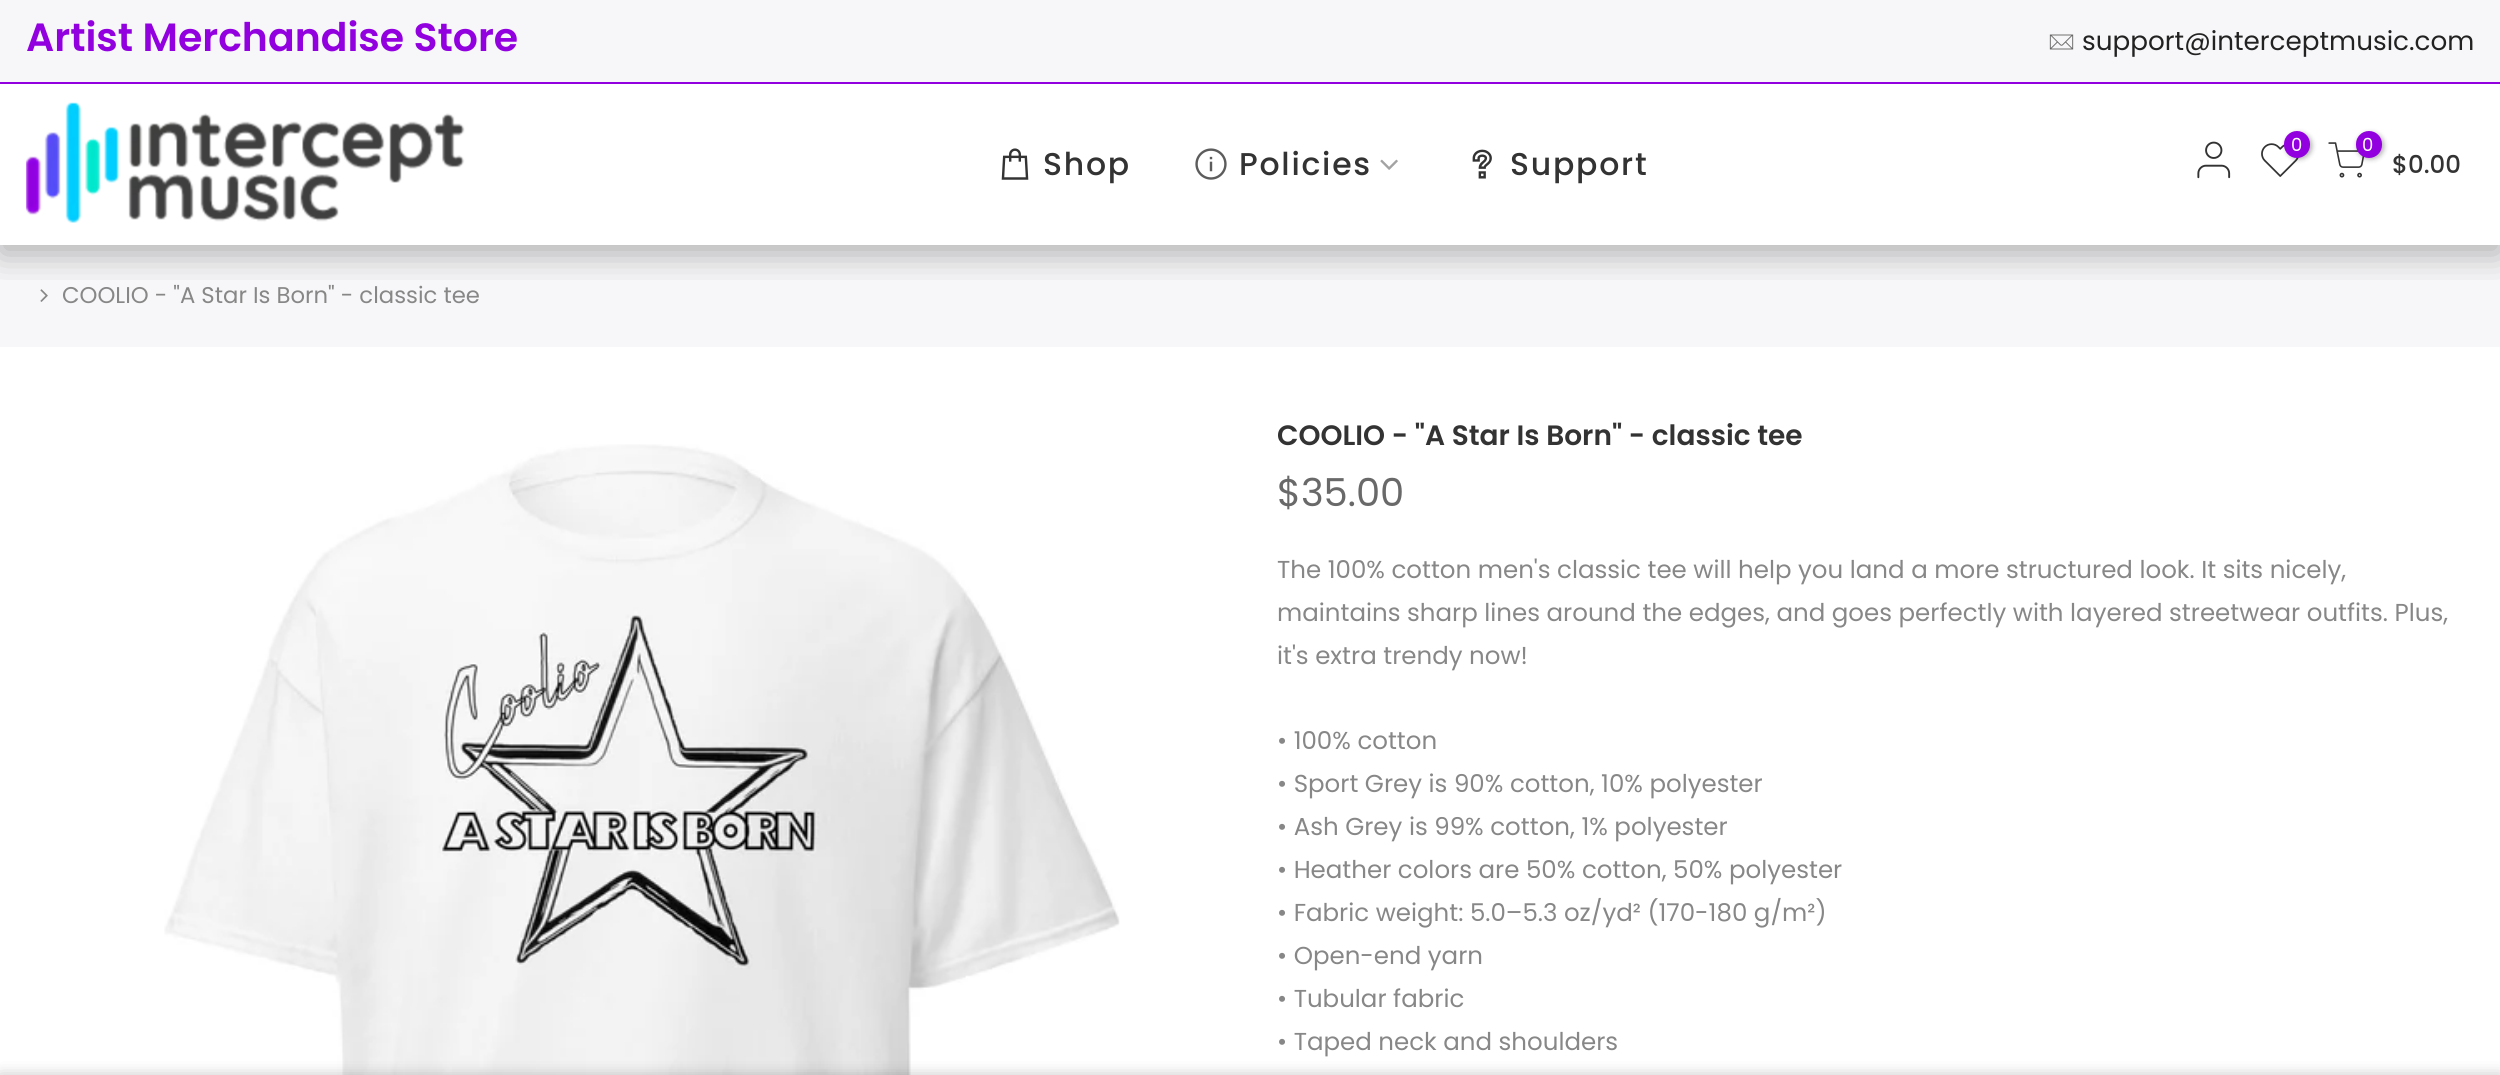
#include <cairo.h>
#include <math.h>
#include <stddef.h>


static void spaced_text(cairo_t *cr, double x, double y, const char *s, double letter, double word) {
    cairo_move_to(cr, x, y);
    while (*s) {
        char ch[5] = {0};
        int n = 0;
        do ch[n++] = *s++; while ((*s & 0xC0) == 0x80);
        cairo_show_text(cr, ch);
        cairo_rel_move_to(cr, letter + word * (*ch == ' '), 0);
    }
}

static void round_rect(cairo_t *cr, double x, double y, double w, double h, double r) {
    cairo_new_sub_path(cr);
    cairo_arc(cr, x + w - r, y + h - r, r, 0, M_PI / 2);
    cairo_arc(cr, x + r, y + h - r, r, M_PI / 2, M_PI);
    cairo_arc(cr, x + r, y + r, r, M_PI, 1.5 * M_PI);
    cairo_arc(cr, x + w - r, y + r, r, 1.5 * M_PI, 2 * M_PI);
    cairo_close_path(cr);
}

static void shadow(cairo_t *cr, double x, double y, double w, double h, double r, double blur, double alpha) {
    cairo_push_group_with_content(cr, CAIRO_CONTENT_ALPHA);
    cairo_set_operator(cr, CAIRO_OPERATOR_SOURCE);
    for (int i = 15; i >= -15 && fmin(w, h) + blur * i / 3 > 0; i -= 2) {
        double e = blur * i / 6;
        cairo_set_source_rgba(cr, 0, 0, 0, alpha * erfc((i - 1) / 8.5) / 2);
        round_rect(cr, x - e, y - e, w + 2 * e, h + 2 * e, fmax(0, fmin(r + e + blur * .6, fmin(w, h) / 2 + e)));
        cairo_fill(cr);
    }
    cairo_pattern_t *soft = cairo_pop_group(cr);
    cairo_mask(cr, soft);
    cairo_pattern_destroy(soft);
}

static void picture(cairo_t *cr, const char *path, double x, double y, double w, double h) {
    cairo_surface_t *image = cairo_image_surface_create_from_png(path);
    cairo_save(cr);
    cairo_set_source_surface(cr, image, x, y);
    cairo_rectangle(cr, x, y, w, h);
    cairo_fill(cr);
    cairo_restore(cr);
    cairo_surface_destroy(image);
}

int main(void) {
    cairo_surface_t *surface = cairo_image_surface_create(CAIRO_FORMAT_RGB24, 2500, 1075);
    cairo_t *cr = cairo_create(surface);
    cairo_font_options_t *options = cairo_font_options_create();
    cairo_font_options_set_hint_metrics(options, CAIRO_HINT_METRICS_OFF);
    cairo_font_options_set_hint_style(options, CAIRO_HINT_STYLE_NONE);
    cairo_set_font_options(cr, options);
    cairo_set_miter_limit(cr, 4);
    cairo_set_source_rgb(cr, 1, 1, 1);
    cairo_paint(cr);
    cairo_set_source_rgb(cr, 0.965, 0.965, 0.973);
    cairo_rectangle(cr, 0, 245, 2500, 102);
    cairo_fill(cr);
    picture(cr, "img10.png", 40, 289, 8, 13);
    cairo_save(cr);
    cairo_rectangle(cr, 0, 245, 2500, 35);
    cairo_clip(cr);
    cairo_set_source_rgb(cr, 0, 0, 0);
    shadow(cr, 0, 9, 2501, 245, 0, 17.5, 0.3);
    cairo_restore(cr);
    cairo_rectangle(cr, 0, 0, 2500, 82);
    cairo_fill(cr);
    cairo_set_source_rgb(cr, 0.573, 0, 0.878);
    cairo_rectangle(cr, 0, 82, 2500, 2);
    cairo_fill(cr);
    cairo_select_font_face(cr, "Poppins SemiBold", CAIRO_FONT_SLANT_NORMAL, CAIRO_FONT_WEIGHT_NORMAL);
    cairo_set_font_size(cr, 39.4);
    cairo_move_to(cr, 26, 51);
    cairo_show_text(cr, "Artist Merchandise Store");
    picture(cr, "img1.png", 2049, 34, 25, 16);
    cairo_select_font_face(cr, "Poppins", CAIRO_FONT_SLANT_NORMAL, CAIRO_FONT_WEIGHT_NORMAL);
    cairo_set_font_size(cr, 26.25);
    cairo_set_source_rgb(cr, 0.133, 0.133, 0.133);
    cairo_move_to(cr, 2082, 50);
    cairo_show_text(cr, "support@interceptmusic.com");
    picture(cr, "img2.png", 26, 102, 439, 121);
    picture(cr, "img3.png", 1001, 148, 28, 32);
    cairo_select_font_face(cr, "Poppins Medium", CAIRO_FONT_SLANT_NORMAL, CAIRO_FONT_WEIGHT_NORMAL);
    cairo_set_font_size(cr, 31.5);
    cairo_set_source_rgb(cr, 0.2, 0.2, 0.2);
    spaced_text(cr, 1043, 175, "Shop", 1.75, 0);
    picture(cr, "img4.png", 1195, 148, 32, 32);
    spaced_text(cr, 1239, 175, "Policies", 1.75, 0);
    picture(cr, "img5.png", 1380, 159, 18, 11);
    picture(cr, "img6.png", 1472, 149, 20, 30);
    spaced_text(cr, 1510, 175, "Support", 1.75, 0);
    picture(cr, "img7.png", 2197, 141, 34, 38);
    picture(cr, "img8.png", 2261, 143, 38, 34);
    cairo_set_source_rgb(cr, 0, 0, 0);
    shadow(cr, 2286, 133, 26, 26, 13, 2.5, 0.3);
    cairo_set_source_rgb(cr, 0.573, 0, 0.878);
    round_rect(cr, 2284, 131, 26, 27, 13);
    cairo_fill(cr);
    cairo_select_font_face(cr, "Poppins", CAIRO_FONT_SLANT_NORMAL, CAIRO_FONT_WEIGHT_NORMAL);
    cairo_set_font_size(cr, 18);
    cairo_set_source_rgb(cr, 1, 1, 1);
    cairo_move_to(cr, 2291, 151);
    cairo_show_text(cr, "0");
    picture(cr, "img9.png", 2328, 142, 36, 36);
    cairo_set_source_rgb(cr, 0, 0, 0);
    shadow(cr, 2357, 133, 27, 26, 13, 2.5, 0.3);
    cairo_set_source_rgb(cr, 0.573, 0, 0.878);
    round_rect(cr, 2356, 131, 26, 27, 13);
    cairo_fill(cr);
    cairo_set_source_rgb(cr, 1, 1, 1);
    cairo_move_to(cr, 2362, 151);
    cairo_show_text(cr, "0");
    cairo_select_font_face(cr, "Poppins Medium", CAIRO_FONT_SLANT_NORMAL, CAIRO_FONT_WEIGHT_NORMAL);
    cairo_set_font_size(cr, 24.5);
    cairo_set_source_rgb(cr, 0.2, 0.2, 0.2);
    cairo_move_to(cr, 2392, 173);
    cairo_show_text(cr, "$0.00");
    cairo_select_font_face(cr, "Poppins", CAIRO_FONT_SLANT_NORMAL, CAIRO_FONT_WEIGHT_NORMAL);
    cairo_set_font_size(cr, 22.75);
    cairo_set_source_rgb(cr, 0.529, 0.529, 0.529);
    cairo_move_to(cr, 62, 303);
    cairo_show_text(cr, "COOLIO - \"A Star Is Born\" - classic tee");
    picture(cr, "img11.png", 164, 444, 956, 631);
    cairo_select_font_face(cr, "Poppins SemiBold", CAIRO_FONT_SLANT_NORMAL, CAIRO_FONT_WEIGHT_NORMAL);
    cairo_set_font_size(cr, 28);
    cairo_set_source_rgb(cr, 0.2, 0.2, 0.2);
    cairo_move_to(cr, 1277, 445);
    cairo_show_text(cr, "COOLIO - \"A Star Is Born\" - classic tee");
    cairo_select_font_face(cr, "Poppins", CAIRO_FONT_SLANT_NORMAL, CAIRO_FONT_WEIGHT_NORMAL);
    cairo_set_font_size(cr, 38.5);
    cairo_set_source_rgb(cr, 0.412, 0.412, 0.412);
    cairo_move_to(cr, 1277, 506);
    cairo_show_text(cr, "$35.00");
    cairo_set_font_size(cr, 24.5);
    cairo_set_source_rgb(cr, 0.529, 0.529, 0.529);
    cairo_move_to(cr, 1277, 578);
    cairo_show_text(cr, "The 100% cotton men's classic tee will help you land a more structured look. It sits nicely,");
    cairo_move_to(cr, 1277, 621);
    cairo_show_text(cr, "maintains sharp lines around the edges, and goes perfectly with layered streetwear outfits. Plus,");
    cairo_move_to(cr, 1277, 664);
    cairo_show_text(cr, "it's extra trendy now!");
    cairo_move_to(cr, 1277, 749);
    cairo_show_text(cr, "• 100% cotton");
    cairo_move_to(cr, 1277, 792);
    cairo_show_text(cr, "• Sport Grey is 90% cotton, 10% polyester");
    cairo_move_to(cr, 1277, 835);
    cairo_show_text(cr, "• Ash Grey is 99% cotton, 1% polyester");
    cairo_move_to(cr, 1277, 878);
    cairo_show_text(cr, "• Heather colors are 50% cotton, 50% polyester");
    cairo_move_to(cr, 1277, 921);
    cairo_show_text(cr, "• Fabric weight: 5.0–5.3 oz/yd² (170-180 g/m²)");
    cairo_move_to(cr, 1277, 964);
    cairo_show_text(cr, "• Open-end yarn");
    cairo_move_to(cr, 1277, 1007);
    cairo_show_text(cr, "• Tubular fabric");
    cairo_move_to(cr, 1277, 1050);
    cairo_show_text(cr, "• Taped neck and shoulders");
    cairo_set_source_rgb(cr, 0, 0, 0);
    shadow(cr, 0, 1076, 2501, 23, 0, 8, 0.12);
    shadow(cr, 0, 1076, 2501, 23, 0, 8, 0.14);
    cairo_surface_write_to_png(surface, "page.png");
    cairo_font_options_destroy(options);
    cairo_destroy(cr);
    cairo_surface_destroy(surface);
    return 0;
}
